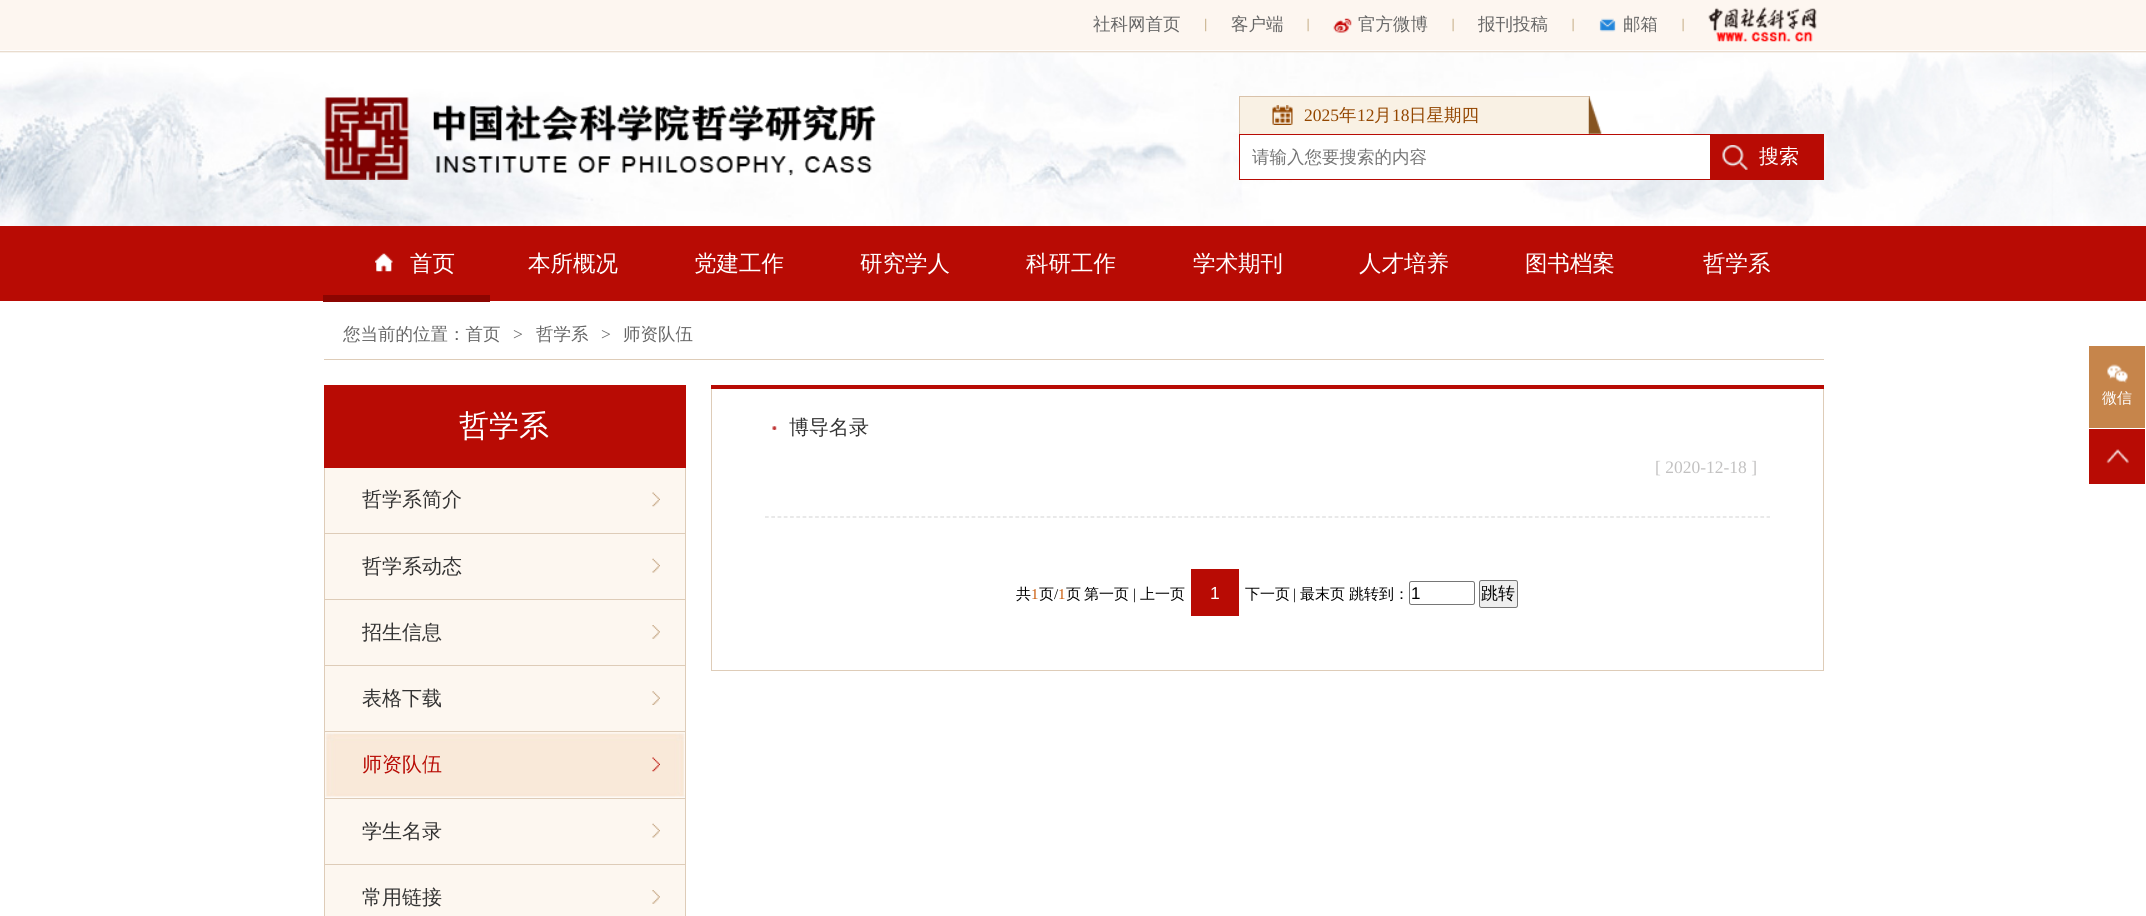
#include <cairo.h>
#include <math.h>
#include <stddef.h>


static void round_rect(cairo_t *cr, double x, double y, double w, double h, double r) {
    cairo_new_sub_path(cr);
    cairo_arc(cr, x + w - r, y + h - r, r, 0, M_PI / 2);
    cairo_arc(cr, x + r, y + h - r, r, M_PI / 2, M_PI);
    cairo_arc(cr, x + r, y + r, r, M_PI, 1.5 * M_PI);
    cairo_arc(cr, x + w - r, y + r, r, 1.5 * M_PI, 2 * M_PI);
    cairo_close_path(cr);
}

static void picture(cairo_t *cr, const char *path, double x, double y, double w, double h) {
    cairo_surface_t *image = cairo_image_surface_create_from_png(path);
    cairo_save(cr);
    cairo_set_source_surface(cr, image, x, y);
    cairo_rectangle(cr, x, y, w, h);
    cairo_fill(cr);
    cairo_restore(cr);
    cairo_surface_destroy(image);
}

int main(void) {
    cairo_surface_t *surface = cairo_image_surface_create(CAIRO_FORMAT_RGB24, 2146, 916);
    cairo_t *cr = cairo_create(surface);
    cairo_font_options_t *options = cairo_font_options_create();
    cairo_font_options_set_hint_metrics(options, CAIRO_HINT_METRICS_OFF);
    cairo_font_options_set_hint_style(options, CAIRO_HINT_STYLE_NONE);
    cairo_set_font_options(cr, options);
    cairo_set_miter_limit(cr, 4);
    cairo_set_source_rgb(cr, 1, 1, 1);
    cairo_paint(cr);
    picture(cr, "img1.png", 0, 0, 2146, 53);
    picture(cr, "img2.png", 1205, 18, 2, 14);
    cairo_select_font_face(cr, "WenQuanYi Zen Hei Medium", CAIRO_FONT_SLANT_NORMAL, CAIRO_FONT_WEIGHT_NORMAL);
    cairo_set_font_size(cr, 17.5);
    cairo_set_source_rgb(cr, 0.4, 0.4, 0.4);
    cairo_move_to(cr, 1093, 30);
    cairo_show_text(cr, "社科网首页");
    picture(cr, "img3.png", 1307, 18, 2, 14);
    cairo_move_to(cr, 1231, 30);
    cairo_show_text(cr, "客户端");
    picture(cr, "img3.png", 1452, 18, 2, 14);
    picture(cr, "img4.png", 1333, 18, 19, 15);
    cairo_move_to(cr, 1358, 30);
    cairo_show_text(cr, "官方微博");
    picture(cr, "img3.png", 1572, 18, 2, 14);
    cairo_move_to(cr, 1478, 30);
    cairo_show_text(cr, "报刊投稿");
    picture(cr, "img3.png", 1682, 18, 2, 14);
    picture(cr, "img5.png", 1599, 18, 17, 14);
    cairo_move_to(cr, 1623, 30);
    cairo_show_text(cr, "邮箱");
    picture(cr, "img6.png", 1708, 7, 109, 35);
    picture(cr, "img7.png", 0, 52, 2146, 174);
    picture(cr, "img8.png", 324, 97, 552, 83);
    cairo_set_source_rgb(cr, 0.976, 0.945, 0.894);
    cairo_rectangle(cr, 1240, 97, 349, 37);
    cairo_fill(cr);
    cairo_set_source_rgb(cr, 0.851, 0.761, 0.667);
    cairo_rectangle(cr, 1239, 96, 351, 1);
    cairo_fill(cr);
    cairo_rectangle(cr, 1589, 96, 1, 38);
    cairo_fill(cr);
    cairo_rectangle(cr, 1239, 96, 1, 38);
    cairo_fill(cr);
    picture(cr, "img9.png", 1272, 105, 21, 20);
    cairo_select_font_face(cr, "Liberation Serif", CAIRO_FONT_SLANT_NORMAL, CAIRO_FONT_WEIGHT_NORMAL);
    cairo_set_source_rgb(cr, 0.576, 0.275, 0);
    cairo_move_to(cr, 1304, 121);
    cairo_show_text(cr, "2025");
    cairo_select_font_face(cr, "WenQuanYi Zen Hei Medium", CAIRO_FONT_SLANT_NORMAL, CAIRO_FONT_WEIGHT_NORMAL);
    cairo_move_to(cr, 1339, 121);
    cairo_show_text(cr, "年");
    cairo_select_font_face(cr, "Liberation Serif", CAIRO_FONT_SLANT_NORMAL, CAIRO_FONT_WEIGHT_NORMAL);
    cairo_move_to(cr, 1357, 121);
    cairo_show_text(cr, "12");
    cairo_select_font_face(cr, "WenQuanYi Zen Hei Medium", CAIRO_FONT_SLANT_NORMAL, CAIRO_FONT_WEIGHT_NORMAL);
    cairo_move_to(cr, 1374, 121);
    cairo_show_text(cr, "月");
    cairo_select_font_face(cr, "Liberation Serif", CAIRO_FONT_SLANT_NORMAL, CAIRO_FONT_WEIGHT_NORMAL);
    cairo_move_to(cr, 1392, 121);
    cairo_show_text(cr, "18");
    cairo_select_font_face(cr, "WenQuanYi Zen Hei Medium", CAIRO_FONT_SLANT_NORMAL, CAIRO_FONT_WEIGHT_NORMAL);
    cairo_move_to(cr, 1409, 121);
    cairo_show_text(cr, "日星期四");
    picture(cr, "img10.png", 1588, 96, 14, 38);
    cairo_rectangle(cr, 1239.5, 134.5, 584, 45);
    cairo_set_source_rgb(cr, 0.722, 0.043, 0.016);
    cairo_set_line_width(cr, 1);
    cairo_stroke(cr);
    cairo_set_source_rgb(cr, 1, 1, 1);
    cairo_rectangle(cr, 1240, 135, 470, 44);
    cairo_fill(cr);
    cairo_set_source_rgb(cr, 0.459, 0.459, 0.459);
    cairo_move_to(cr, 1252, 163);
    cairo_show_text(cr, "请输入您要搜索的内容");
    cairo_set_source_rgb(cr, 0.722, 0.043, 0.016);
    cairo_rectangle(cr, 1710, 135, 113, 44);
    cairo_fill(cr);
    picture(cr, "img11.png", 1722, 145, 26, 25);
    cairo_set_font_size(cr, 20);
    cairo_set_source_rgb(cr, 1, 1, 1);
    cairo_move_to(cr, 1759, 163);
    cairo_show_text(cr, "搜索");
    cairo_set_source_rgb(cr, 0.722, 0.043, 0.016);
    cairo_rectangle(cr, 0, 226, 2146, 75);
    cairo_fill(cr);
    cairo_set_source_rgb(cr, 0.549, 0.02, 0.004);
    cairo_rectangle(cr, 323, 295, 167, 7);
    cairo_fill(cr);
    picture(cr, "img12.png", 375, 253, 18, 19);
    cairo_set_font_size(cr, 22.5);
    cairo_set_source_rgb(cr, 1, 1, 1);
    cairo_move_to(cr, 410, 271);
    cairo_show_text(cr, "首页");
    cairo_move_to(cr, 528, 271);
    cairo_show_text(cr, "本所概况");
    cairo_move_to(cr, 694, 271);
    cairo_show_text(cr, "党建工作");
    cairo_move_to(cr, 860, 271);
    cairo_show_text(cr, "研究学人");
    cairo_move_to(cr, 1026, 271);
    cairo_show_text(cr, "科研工作");
    cairo_move_to(cr, 1193, 271);
    cairo_show_text(cr, "学术期刊");
    cairo_move_to(cr, 1359, 271);
    cairo_show_text(cr, "人才培养");
    cairo_move_to(cr, 1525, 271);
    cairo_show_text(cr, "图书档案");
    cairo_move_to(cr, 1703, 271);
    cairo_show_text(cr, "哲学系");
    cairo_set_source_rgb(cr, 0.871, 0.8, 0.722);
    cairo_rectangle(cr, 324, 359, 1500, 1);
    cairo_fill(cr);
    cairo_set_font_size(cr, 17.5);
    cairo_set_source_rgb(cr, 0.4, 0.4, 0.4);
    cairo_move_to(cr, 343, 340);
    cairo_show_text(cr, "您当前的位置：首页");
    cairo_select_font_face(cr, "Liberation Serif", CAIRO_FONT_SLANT_NORMAL, CAIRO_FONT_WEIGHT_NORMAL);
    cairo_move_to(cr, 513, 340);
    cairo_show_text(cr, ">");
    cairo_select_font_face(cr, "WenQuanYi Zen Hei Medium", CAIRO_FONT_SLANT_NORMAL, CAIRO_FONT_WEIGHT_NORMAL);
    cairo_move_to(cr, 536, 340);
    cairo_show_text(cr, "哲学系");
    cairo_select_font_face(cr, "Liberation Serif", CAIRO_FONT_SLANT_NORMAL, CAIRO_FONT_WEIGHT_NORMAL);
    cairo_move_to(cr, 601, 340);
    cairo_show_text(cr, ">");
    cairo_select_font_face(cr, "WenQuanYi Zen Hei Medium", CAIRO_FONT_SLANT_NORMAL, CAIRO_FONT_WEIGHT_NORMAL);
    cairo_move_to(cr, 623, 340);
    cairo_show_text(cr, "师资队伍");
    cairo_set_source_rgb(cr, 0.776, 0.522, 0.294);
    cairo_rectangle(cr, 2089, 346, 56, 82);
    cairo_fill(cr);
    picture(cr, "img13.png", 2107, 364, 21, 19);
    cairo_set_font_size(cr, 15);
    cairo_set_source_rgb(cr, 1, 1, 1);
    cairo_move_to(cr, 2102, 403);
    cairo_show_text(cr, "微信");
    cairo_set_source_rgb(cr, 0.722, 0.043, 0.016);
    cairo_rectangle(cr, 2089, 429, 56, 55);
    cairo_fill(cr);
    picture(cr, "img14.png", 2106, 449, 23, 15);
    cairo_rectangle(cr, 324, 385, 362, 83);
    cairo_fill(cr);
    cairo_set_font_size(cr, 30);
    cairo_set_source_rgb(cr, 1, 1, 1);
    cairo_move_to(cr, 459, 436);
    cairo_show_text(cr, "哲学系");
    cairo_set_source_rgb(cr, 0.871, 0.8, 0.722);
    cairo_rectangle(cr, 685, 468, 1, 448);
    cairo_fill(cr);
    cairo_rectangle(cr, 324, 468, 1, 448);
    cairo_fill(cr);
    cairo_set_source_rgb(cr, 0.992, 0.965, 0.941);
    cairo_rectangle(cr, 325, 468, 360, 65);
    cairo_fill(cr);
    cairo_set_source_rgb(cr, 0.871, 0.8, 0.722);
    cairo_rectangle(cr, 325, 533, 360, 1);
    cairo_fill(cr);
    cairo_set_font_size(cr, 20);
    cairo_set_source_rgb(cr, 0.2, 0.2, 0.2);
    cairo_move_to(cr, 362, 506);
    cairo_show_text(cr, "哲学系简介");
    picture(cr, "img15.png", 652, 492, 8, 15);
    cairo_set_source_rgb(cr, 0.992, 0.965, 0.941);
    cairo_rectangle(cr, 325, 534, 360, 65);
    cairo_fill(cr);
    cairo_set_source_rgb(cr, 0.871, 0.8, 0.722);
    cairo_rectangle(cr, 325, 599, 360, 1);
    cairo_fill(cr);
    cairo_set_source_rgb(cr, 0.2, 0.2, 0.2);
    cairo_move_to(cr, 362, 573);
    cairo_show_text(cr, "哲学系动态");
    picture(cr, "img16.png", 652, 558, 8, 15);
    cairo_set_source_rgb(cr, 0.992, 0.965, 0.941);
    cairo_rectangle(cr, 325, 600, 360, 65);
    cairo_fill(cr);
    cairo_set_source_rgb(cr, 0.871, 0.8, 0.722);
    cairo_rectangle(cr, 325, 665, 360, 1);
    cairo_fill(cr);
    cairo_set_source_rgb(cr, 0.2, 0.2, 0.2);
    cairo_move_to(cr, 362, 639);
    cairo_show_text(cr, "招生信息");
    picture(cr, "img17.png", 652, 625, 8, 14);
    cairo_set_source_rgb(cr, 0.992, 0.965, 0.941);
    cairo_rectangle(cr, 325, 666, 360, 67);
    cairo_fill(cr);
    cairo_set_source_rgb(cr, 0.871, 0.8, 0.722);
    cairo_rectangle(cr, 325, 731, 360, 1);
    cairo_fill(cr);
    cairo_set_source_rgb(cr, 0.2, 0.2, 0.2);
    cairo_move_to(cr, 362, 705);
    cairo_show_text(cr, "表格下载");
    picture(cr, "img18.png", 652, 691, 8, 14);
    picture(cr, "img19.png", 325, 733, 360, 65);
    cairo_set_source_rgb(cr, 0.871, 0.8, 0.722);
    cairo_rectangle(cr, 325, 798, 360, 1);
    cairo_fill(cr);
    cairo_set_source_rgb(cr, 0.722, 0.043, 0.016);
    cairo_move_to(cr, 362, 771);
    cairo_show_text(cr, "师资队伍");
    picture(cr, "img20.png", 652, 757, 8, 15);
    cairo_set_source_rgb(cr, 0.992, 0.965, 0.941);
    cairo_rectangle(cr, 325, 799, 360, 65);
    cairo_fill(cr);
    cairo_set_source_rgb(cr, 0.871, 0.8, 0.722);
    cairo_rectangle(cr, 325, 864, 360, 1);
    cairo_fill(cr);
    cairo_set_source_rgb(cr, 0.2, 0.2, 0.2);
    cairo_move_to(cr, 362, 838);
    cairo_show_text(cr, "学生名录");
    picture(cr, "img16.png", 652, 823, 8, 15);
    cairo_set_source_rgb(cr, 0.992, 0.965, 0.941);
    cairo_rectangle(cr, 325, 865, 360, 51);
    cairo_fill(cr);
    cairo_set_source_rgb(cr, 0.2, 0.2, 0.2);
    cairo_move_to(cr, 362, 904);
    cairo_show_text(cr, "常用链接");
    picture(cr, "img17.png", 652, 890, 8, 14);
    cairo_rectangle(cr, 711.5, 385.5, 1112, 285);
    cairo_set_source_rgb(cr, 0.871, 0.8, 0.722);
    cairo_stroke(cr);
    cairo_set_source_rgb(cr, 0.722, 0.043, 0.016);
    cairo_rectangle(cr, 711, 385, 1113, 4);
    cairo_fill(cr);
    cairo_new_path(cr);
    cairo_move_to(cr, 765, 517);
    cairo_line_to(cr, 1770, 517);
    cairo_set_source_rgb(cr, 0.859, 0.859, 0.859);
    cairo_set_line_width(cr, 1.2);
    cairo_set_dash(cr, (double[]){3.75, 2.51}, 2, 0);
    cairo_stroke(cr);
    picture(cr, "img21.png", 772, 426, 5, 4);
    cairo_set_source_rgb(cr, 0.2, 0.2, 0.2);
    cairo_move_to(cr, 789, 434);
    cairo_show_text(cr, "博导名录");
    cairo_select_font_face(cr, "Liberation Serif", CAIRO_FONT_SLANT_NORMAL, CAIRO_FONT_WEIGHT_NORMAL);
    cairo_set_font_size(cr, 17.5);
    cairo_set_source_rgb(cr, 0.761, 0.757, 0.757);
    cairo_move_to(cr, 1655, 473);
    cairo_show_text(cr, "[ 2020-12-18 ]");
    cairo_select_font_face(cr, "WenQuanYi Zen Hei Medium", CAIRO_FONT_SLANT_NORMAL, CAIRO_FONT_WEIGHT_NORMAL);
    cairo_set_font_size(cr, 15);
    cairo_set_source_rgb(cr, 0, 0, 0);
    cairo_move_to(cr, 1016, 599);
    cairo_show_text(cr, "共");
    cairo_select_font_face(cr, "Liberation Serif", CAIRO_FONT_SLANT_NORMAL, CAIRO_FONT_WEIGHT_NORMAL);
    cairo_set_source_rgb(cr, 0.796, 0.361, 0.043);
    cairo_move_to(cr, 1031, 599);
    cairo_show_text(cr, "1");
    cairo_select_font_face(cr, "WenQuanYi Zen Hei Medium", CAIRO_FONT_SLANT_NORMAL, CAIRO_FONT_WEIGHT_NORMAL);
    cairo_set_source_rgb(cr, 0, 0, 0);
    cairo_move_to(cr, 1039, 599);
    cairo_show_text(cr, "页");
    cairo_select_font_face(cr, "Liberation Serif", CAIRO_FONT_SLANT_NORMAL, CAIRO_FONT_WEIGHT_NORMAL);
    cairo_move_to(cr, 1054, 599);
    cairo_show_text(cr, "/");
    cairo_set_source_rgb(cr, 0.796, 0.361, 0.043);
    cairo_move_to(cr, 1058, 599);
    cairo_show_text(cr, "1");
    cairo_select_font_face(cr, "WenQuanYi Zen Hei Medium", CAIRO_FONT_SLANT_NORMAL, CAIRO_FONT_WEIGHT_NORMAL);
    cairo_set_source_rgb(cr, 0, 0, 0);
    cairo_move_to(cr, 1066, 599);
    cairo_show_text(cr, "页");
    cairo_move_to(cr, 1084, 599);
    cairo_show_text(cr, "第一页");
    cairo_select_font_face(cr, "Liberation Serif", CAIRO_FONT_SLANT_NORMAL, CAIRO_FONT_WEIGHT_NORMAL);
    cairo_move_to(cr, 1133, 599);
    cairo_show_text(cr, "|");
    cairo_select_font_face(cr, "WenQuanYi Zen Hei Medium", CAIRO_FONT_SLANT_NORMAL, CAIRO_FONT_WEIGHT_NORMAL);
    cairo_move_to(cr, 1140, 599);
    cairo_show_text(cr, "上一页");
    cairo_set_source_rgb(cr, 0.722, 0.043, 0.016);
    cairo_rectangle(cr, 1191, 569, 48, 47);
    cairo_fill(cr);
    cairo_select_font_face(cr, "Liberation Sans", CAIRO_FONT_SLANT_NORMAL, CAIRO_FONT_WEIGHT_NORMAL);
    cairo_set_font_size(cr, 17.5);
    cairo_set_source_rgb(cr, 1, 1, 1);
    cairo_move_to(cr, 1210, 599);
    cairo_show_text(cr, "1");
    cairo_select_font_face(cr, "WenQuanYi Zen Hei Medium", CAIRO_FONT_SLANT_NORMAL, CAIRO_FONT_WEIGHT_NORMAL);
    cairo_set_font_size(cr, 15);
    cairo_set_source_rgb(cr, 0, 0, 0);
    cairo_move_to(cr, 1245, 599);
    cairo_show_text(cr, "下一页");
    cairo_select_font_face(cr, "Liberation Serif", CAIRO_FONT_SLANT_NORMAL, CAIRO_FONT_WEIGHT_NORMAL);
    cairo_move_to(cr, 1293, 599);
    cairo_show_text(cr, "|");
    cairo_select_font_face(cr, "WenQuanYi Zen Hei Medium", CAIRO_FONT_SLANT_NORMAL, CAIRO_FONT_WEIGHT_NORMAL);
    cairo_move_to(cr, 1300, 599);
    cairo_show_text(cr, "最末页");
    cairo_move_to(cr, 1349, 599);
    cairo_show_text(cr, "跳转到：");
    round_rect(cr, 1409.5, 581.5, 65, 23, 2);
    cairo_set_source_rgb(cr, 0.463, 0.463, 0.463);
    cairo_set_line_width(cr, 1);
    cairo_set_dash(cr, NULL, 0, 0);
    cairo_stroke(cr);
    cairo_select_font_face(cr, "Liberation Sans", CAIRO_FONT_SLANT_NORMAL, CAIRO_FONT_WEIGHT_NORMAL);
    cairo_set_font_size(cr, 17);
    cairo_set_source_rgb(cr, 0, 0, 0);
    cairo_move_to(cr, 1411, 599);
    cairo_show_text(cr, "1");
    cairo_set_source_rgb(cr, 0.937, 0.937, 0.937);
    round_rect(cr, 1479.5, 580.5, 38, 27, 2);
    cairo_fill_preserve(cr);
    cairo_set_source_rgb(cr, 0.463, 0.463, 0.463);
    cairo_stroke(cr);
    cairo_select_font_face(cr, "WenQuanYi Zen Hei Medium", CAIRO_FONT_SLANT_NORMAL, CAIRO_FONT_WEIGHT_NORMAL);
    cairo_set_source_rgb(cr, 0, 0, 0);
    cairo_move_to(cr, 1481, 599);
    cairo_show_text(cr, "跳转");
    cairo_surface_write_to_png(surface, "page.png");
    cairo_font_options_destroy(options);
    cairo_destroy(cr);
    cairo_surface_destroy(surface);
    return 0;
}
